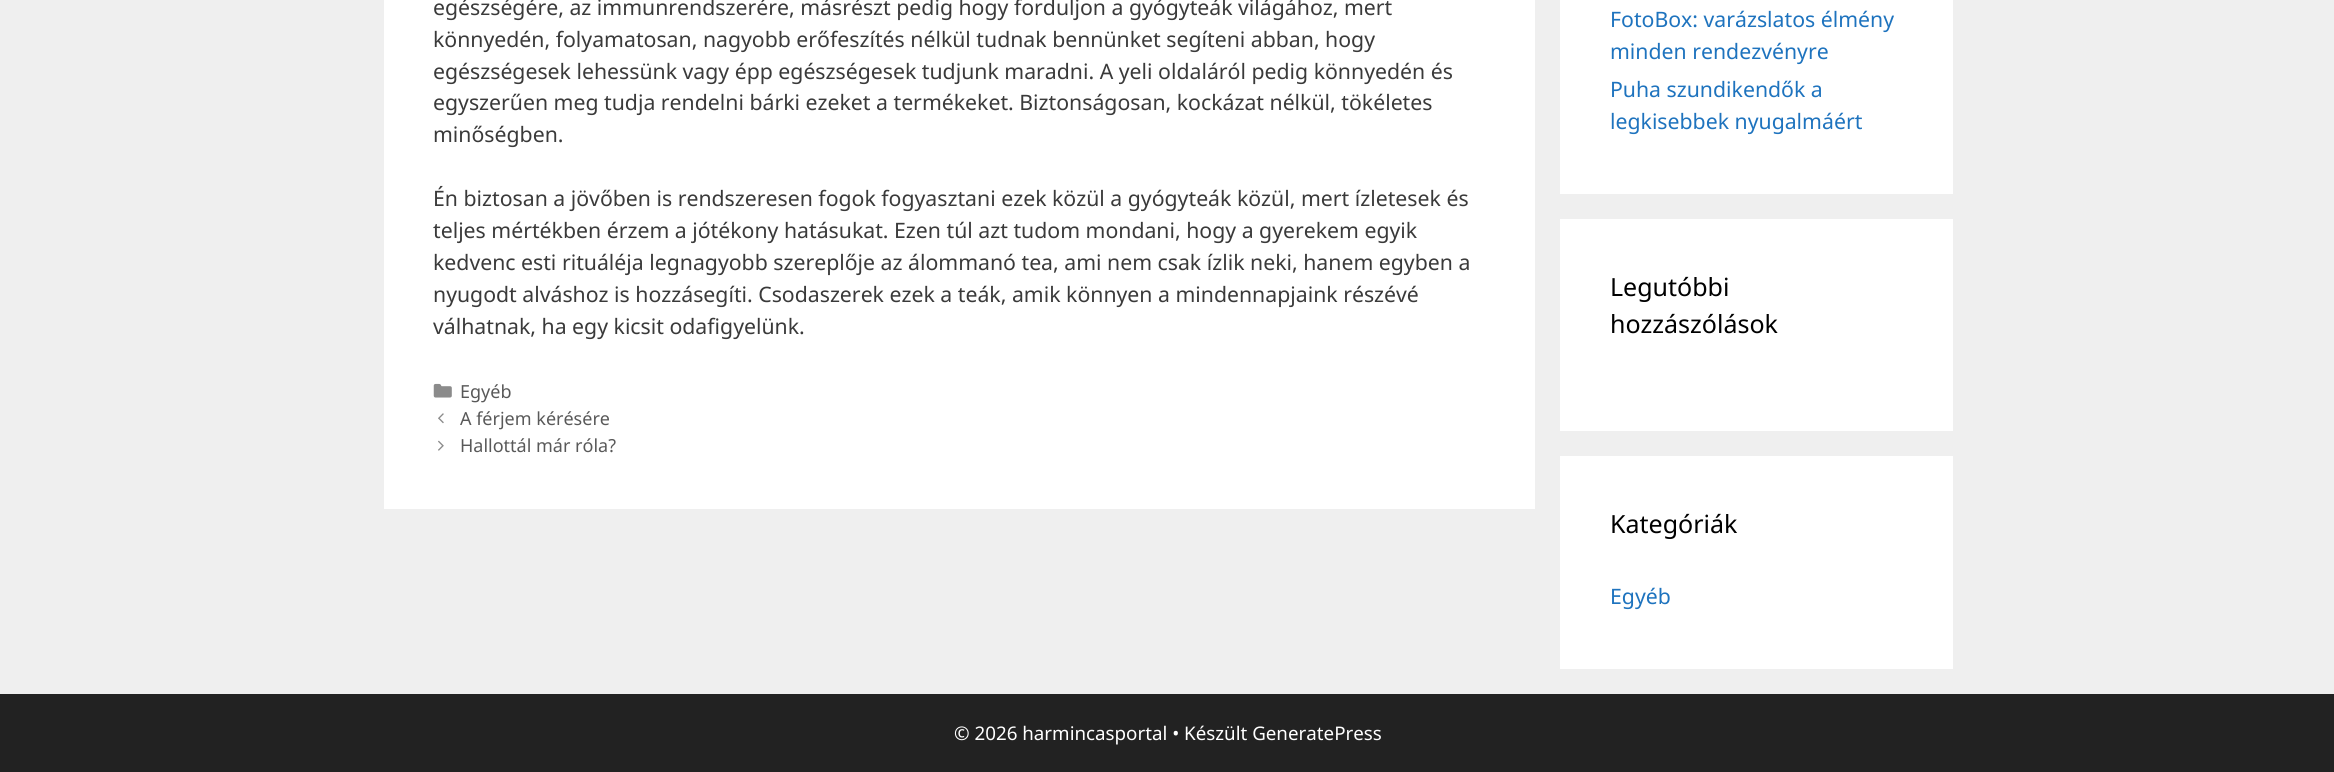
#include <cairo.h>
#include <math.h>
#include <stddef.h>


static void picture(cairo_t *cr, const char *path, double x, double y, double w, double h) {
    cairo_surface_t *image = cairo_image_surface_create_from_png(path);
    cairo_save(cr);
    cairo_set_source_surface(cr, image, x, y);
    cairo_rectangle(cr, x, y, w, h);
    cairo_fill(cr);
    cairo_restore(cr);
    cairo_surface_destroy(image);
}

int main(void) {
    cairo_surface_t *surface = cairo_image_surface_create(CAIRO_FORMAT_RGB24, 2334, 772);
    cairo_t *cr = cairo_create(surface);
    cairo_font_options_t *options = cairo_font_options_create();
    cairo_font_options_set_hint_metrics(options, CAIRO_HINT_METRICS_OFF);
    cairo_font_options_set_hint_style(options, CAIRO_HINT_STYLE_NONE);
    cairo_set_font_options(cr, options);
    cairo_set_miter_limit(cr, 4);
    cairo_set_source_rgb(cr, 0.937, 0.937, 0.937);
    cairo_paint(cr);
    cairo_set_source_rgb(cr, 1, 1, 1);
    cairo_rectangle(cr, 384, 0, 1151, 509);
    cairo_fill(cr);
    cairo_select_font_face(cr, "Noto Sans", CAIRO_FONT_SLANT_NORMAL, CAIRO_FONT_WEIGHT_NORMAL);
    cairo_set_font_size(cr, 21.25);
    cairo_set_source_rgb(cr, 0.227, 0.227, 0.227);
    cairo_move_to(cr, 433, 15);
    cairo_show_text(cr, "egészségére, az immunrendszerére, másrészt pedig hogy forduljon a gyógyteák világához, mert");
    cairo_move_to(cr, 433, 47);
    cairo_show_text(cr, "könnyedén, folyamatosan, nagyobb erőfeszítés nélkül tudnak bennünket segíteni abban, hogy");
    cairo_move_to(cr, 433, 79);
    cairo_show_text(cr, "egészségesek lehessünk vagy épp egészségesek tudjunk maradni. A yeli oldaláról pedig könnyedén és");
    cairo_move_to(cr, 433, 110);
    cairo_show_text(cr, "egyszerűen meg tudja rendelni bárki ezeket a termékeket. Biztonságosan, kockázat nélkül, tökéletes");
    cairo_move_to(cr, 433, 142);
    cairo_show_text(cr, "minőségben.");
    cairo_move_to(cr, 433, 206);
    cairo_show_text(cr, "Én biztosan a jövőben is rendszeresen fogok fogyasztani ezek közül a gyógyteák közül, mert ízletesek és");
    cairo_move_to(cr, 433, 238);
    cairo_show_text(cr, "teljes mértékben érzem a jótékony hatásukat. Ezen túl azt tudom mondani, hogy a gyerekem egyik");
    cairo_move_to(cr, 433, 270);
    cairo_show_text(cr, "kedvenc esti rituáléja legnagyobb szereplője az álommanó tea, ami nem csak ízlik neki, hanem egyben a");
    cairo_move_to(cr, 433, 302);
    cairo_show_text(cr, "nyugodt alváshoz is hozzásegíti. Csodaszerek ezek a teák, amik könnyen a mindennapjaink részévé");
    cairo_move_to(cr, 433, 334);
    cairo_show_text(cr, "válhatnak, ha egy kicsit odafigyelünk.");
    picture(cr, "img1.png", 433, 383, 19, 15);
    cairo_set_font_size(cr, 18);
    cairo_set_source_rgb(cr, 0.349, 0.349, 0.349);
    cairo_move_to(cr, 460, 398);
    cairo_show_text(cr, "Egyéb");
    picture(cr, "img2.png", 438, 413, 6, 11);
    cairo_move_to(cr, 460, 425);
    cairo_show_text(cr, "A férjem kérésére");
    picture(cr, "img3.png", 438, 440, 6, 11);
    cairo_move_to(cr, 460, 452);
    cairo_show_text(cr, "Hallottál már róla?");
    cairo_set_source_rgb(cr, 1, 1, 1);
    cairo_rectangle(cr, 1560, 0, 393, 194);
    cairo_fill(cr);
    cairo_set_font_size(cr, 21.25);
    cairo_set_source_rgb(cr, 0.118, 0.451, 0.745);
    cairo_move_to(cr, 1610, 27);
    cairo_show_text(cr, "FotoBox: varázslatos élmény");
    cairo_move_to(cr, 1610, 59);
    cairo_show_text(cr, "minden rendezvényre");
    cairo_move_to(cr, 1610, 97);
    cairo_show_text(cr, "Puha szundikendők a");
    cairo_move_to(cr, 1610, 129);
    cairo_show_text(cr, "legkisebbek nyugalmáért");
    cairo_set_source_rgb(cr, 1, 1, 1);
    cairo_rectangle(cr, 1560, 219, 393, 212);
    cairo_fill(cr);
    cairo_set_font_size(cr, 25);
    cairo_set_source_rgb(cr, 0, 0, 0);
    cairo_move_to(cr, 1610, 296);
    cairo_show_text(cr, "Legutóbbi");
    cairo_move_to(cr, 1610, 333);
    cairo_show_text(cr, "hozzászólások");
    cairo_set_source_rgb(cr, 1, 1, 1);
    cairo_rectangle(cr, 1560, 456, 393, 213);
    cairo_fill(cr);
    cairo_set_source_rgb(cr, 0, 0, 0);
    cairo_move_to(cr, 1610, 533);
    cairo_show_text(cr, "Kategóriák");
    cairo_set_font_size(cr, 21.25);
    cairo_set_source_rgb(cr, 0.118, 0.451, 0.745);
    cairo_move_to(cr, 1610, 604);
    cairo_show_text(cr, "Egyéb");
    cairo_set_source_rgb(cr, 0.133, 0.133, 0.133);
    cairo_rectangle(cr, 0, 694, 2334, 78);
    cairo_fill(cr);
    cairo_set_font_size(cr, 18.75);
    cairo_set_source_rgb(cr, 1, 1, 1);
    cairo_move_to(cr, 954, 740);
    cairo_show_text(cr, "© 2026 harmincasportal • Készült GeneratePress");
    cairo_surface_write_to_png(surface, "page.png");
    cairo_font_options_destroy(options);
    cairo_destroy(cr);
    cairo_surface_destroy(surface);
    return 0;
}
